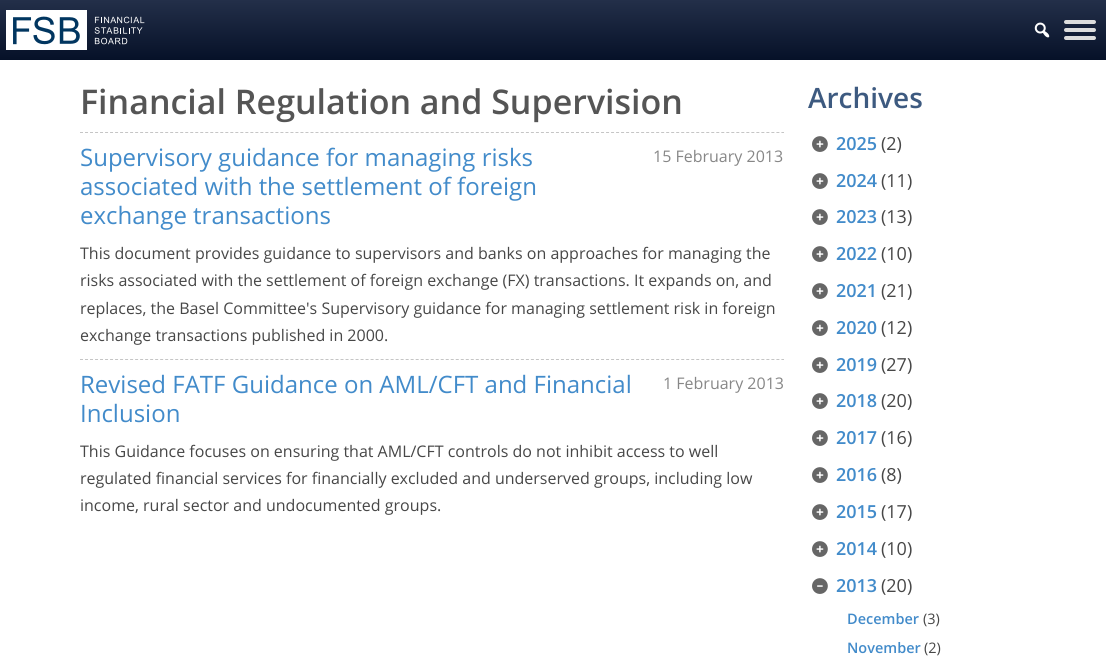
#include <cairo.h>
#include <math.h>
#include <stddef.h>


static void round_rect(cairo_t *cr, double x, double y, double w, double h, double r) {
    cairo_new_sub_path(cr);
    cairo_arc(cr, x + w - r, y + h - r, r, 0, M_PI / 2);
    cairo_arc(cr, x + r, y + h - r, r, M_PI / 2, M_PI);
    cairo_arc(cr, x + r, y + r, r, M_PI, 1.5 * M_PI);
    cairo_arc(cr, x + w - r, y + r, r, 1.5 * M_PI, 2 * M_PI);
    cairo_close_path(cr);
}

static void picture(cairo_t *cr, const char *path, double x, double y, double w, double h) {
    cairo_surface_t *image = cairo_image_surface_create_from_png(path);
    cairo_save(cr);
    cairo_set_source_surface(cr, image, x, y);
    cairo_rectangle(cr, x, y, w, h);
    cairo_fill(cr);
    cairo_restore(cr);
    cairo_surface_destroy(image);
}

int main(void) {
    cairo_surface_t *surface = cairo_image_surface_create(CAIRO_FORMAT_RGB24, 1106, 671);
    cairo_t *cr = cairo_create(surface);
    cairo_font_options_t *options = cairo_font_options_create();
    cairo_font_options_set_hint_metrics(options, CAIRO_HINT_METRICS_OFF);
    cairo_font_options_set_hint_style(options, CAIRO_HINT_STYLE_NONE);
    cairo_set_font_options(cr, options);
    cairo_set_miter_limit(cr, 4);
    cairo_pattern_t *gradient;
    cairo_set_source_rgb(cr, 1, 1, 1);
    cairo_paint(cr);
    gradient = cairo_pattern_create_linear(553, 0, 553, 60);
    cairo_pattern_add_color_stop_rgba(gradient, 0, 0.137, 0.184, 0.286, 1);
    cairo_pattern_add_color_stop_rgba(gradient, 1, 0.024, 0.067, 0.157, 1);
    cairo_set_source(cr, gradient);
    cairo_pattern_destroy(gradient);
    cairo_rectangle(cr, 0, 0, 1106, 60);
    cairo_fill(cr);
    picture(cr, "img1.png", 6, 10, 139, 40);
    picture(cr, "img2.png", 1034, 22, 16, 16);
    cairo_set_source_rgb(cr, 0.867, 0.867, 0.867);
    round_rect(cr, 1064, 20, 32, 4, 2);
    cairo_fill(cr);
    round_rect(cr, 1064, 28, 32, 4, 2);
    cairo_fill(cr);
    round_rect(cr, 1064, 36, 32, 4, 2);
    cairo_fill(cr);
    cairo_select_font_face(cr, "Open Sans SemiBold", CAIRO_FONT_SLANT_NORMAL, CAIRO_FONT_WEIGHT_NORMAL);
    cairo_set_font_size(cr, 34);
    cairo_set_source_rgb(cr, 0.333, 0.333, 0.333);
    cairo_move_to(cr, 80, 114);
    cairo_show_text(cr, "Financial Regulation and Supervision");
    cairo_new_path(cr);
    cairo_move_to(cr, 80, 132.5);
    cairo_line_to(cr, 784, 132.5);
    cairo_set_source_rgb(cr, 0.773, 0.773, 0.773);
    cairo_set_line_width(cr, 1);
    cairo_set_dash(cr, (double[]){3, 2.01}, 2, 0);
    cairo_stroke(cr);
    cairo_select_font_face(cr, "Open Sans", CAIRO_FONT_SLANT_NORMAL, CAIRO_FONT_WEIGHT_NORMAL);
    cairo_set_font_size(cr, 24);
    cairo_set_source_rgb(cr, 0.259, 0.545, 0.792);
    cairo_move_to(cr, 80, 166);
    cairo_show_text(cr, "Supervisory guidance for managing risks");
    cairo_move_to(cr, 80, 195);
    cairo_show_text(cr, "associated with the settlement of foreign");
    cairo_move_to(cr, 80, 224);
    cairo_show_text(cr, "exchange transactions");
    cairo_set_font_size(cr, 16);
    cairo_set_source_rgb(cr, 0.529, 0.529, 0.529);
    cairo_move_to(cr, 653, 162);
    cairo_show_text(cr, "15 February 2013");
    cairo_set_source_rgb(cr, 0.278, 0.278, 0.278);
    cairo_move_to(cr, 80, 259);
    cairo_show_text(cr, "This document provides guidance to supervisors and banks on approaches for managing the");
    cairo_move_to(cr, 80, 286);
    cairo_show_text(cr, "risks associated with the settlement of foreign exchange (FX) transactions. It expands on, and");
    cairo_move_to(cr, 80, 314);
    cairo_show_text(cr, "replaces, the Basel Committee's Supervisory guidance for managing settlement risk in foreign");
    cairo_move_to(cr, 80, 341);
    cairo_show_text(cr, "exchange transactions published in 2000.");
    cairo_new_path(cr);
    cairo_move_to(cr, 80, 359.5);
    cairo_line_to(cr, 784, 359.5);
    cairo_set_source_rgb(cr, 0.773, 0.773, 0.773);
    cairo_stroke(cr);
    cairo_set_font_size(cr, 24);
    cairo_set_source_rgb(cr, 0.259, 0.545, 0.792);
    cairo_move_to(cr, 80, 393);
    cairo_show_text(cr, "Revised FATF Guidance on AML/CFT and Financial");
    cairo_move_to(cr, 80, 422);
    cairo_show_text(cr, "Inclusion");
    cairo_set_font_size(cr, 16);
    cairo_set_source_rgb(cr, 0.529, 0.529, 0.529);
    cairo_move_to(cr, 663, 389);
    cairo_show_text(cr, "1 February 2013");
    cairo_set_source_rgb(cr, 0.278, 0.278, 0.278);
    cairo_move_to(cr, 80, 457);
    cairo_show_text(cr, "This Guidance focuses on ensuring that AML/CFT controls do not inhibit access to well");
    cairo_move_to(cr, 80, 484);
    cairo_show_text(cr, "regulated financial services for financially excluded and underserved groups, including low");
    cairo_move_to(cr, 80, 511);
    cairo_show_text(cr, "income, rural sector and undocumented groups.");
    cairo_select_font_face(cr, "Open Sans SemiBold", CAIRO_FONT_SLANT_NORMAL, CAIRO_FONT_WEIGHT_NORMAL);
    cairo_set_font_size(cr, 28);
    cairo_set_source_rgb(cr, 0.239, 0.353, 0.502);
    cairo_move_to(cr, 808, 108);
    cairo_show_text(cr, "Archives");
    picture(cr, "img3.png", 812, 136, 16, 16);
    cairo_set_font_size(cr, 18);
    cairo_set_source_rgb(cr, 0.259, 0.545, 0.792);
    cairo_move_to(cr, 836, 150);
    cairo_show_text(cr, "2025");
    cairo_select_font_face(cr, "Open Sans", CAIRO_FONT_SLANT_NORMAL, CAIRO_FONT_WEIGHT_NORMAL);
    cairo_set_source_rgb(cr, 0.278, 0.278, 0.278);
    cairo_move_to(cr, 881, 150);
    cairo_show_text(cr, "(2)");
    picture(cr, "img3.png", 812, 173, 16, 16);
    cairo_select_font_face(cr, "Open Sans SemiBold", CAIRO_FONT_SLANT_NORMAL, CAIRO_FONT_WEIGHT_NORMAL);
    cairo_set_source_rgb(cr, 0.259, 0.545, 0.792);
    cairo_move_to(cr, 836, 187);
    cairo_show_text(cr, "2024");
    cairo_select_font_face(cr, "Open Sans", CAIRO_FONT_SLANT_NORMAL, CAIRO_FONT_WEIGHT_NORMAL);
    cairo_set_source_rgb(cr, 0.278, 0.278, 0.278);
    cairo_move_to(cr, 881, 187);
    cairo_show_text(cr, "(11)");
    picture(cr, "img3.png", 812, 209, 16, 16);
    cairo_select_font_face(cr, "Open Sans SemiBold", CAIRO_FONT_SLANT_NORMAL, CAIRO_FONT_WEIGHT_NORMAL);
    cairo_set_source_rgb(cr, 0.259, 0.545, 0.792);
    cairo_move_to(cr, 836, 223);
    cairo_show_text(cr, "2023");
    cairo_select_font_face(cr, "Open Sans", CAIRO_FONT_SLANT_NORMAL, CAIRO_FONT_WEIGHT_NORMAL);
    cairo_set_source_rgb(cr, 0.278, 0.278, 0.278);
    cairo_move_to(cr, 881, 223);
    cairo_show_text(cr, "(13)");
    picture(cr, "img3.png", 812, 246, 16, 16);
    cairo_select_font_face(cr, "Open Sans SemiBold", CAIRO_FONT_SLANT_NORMAL, CAIRO_FONT_WEIGHT_NORMAL);
    cairo_set_source_rgb(cr, 0.259, 0.545, 0.792);
    cairo_move_to(cr, 836, 260);
    cairo_show_text(cr, "2022");
    cairo_select_font_face(cr, "Open Sans", CAIRO_FONT_SLANT_NORMAL, CAIRO_FONT_WEIGHT_NORMAL);
    cairo_set_source_rgb(cr, 0.278, 0.278, 0.278);
    cairo_move_to(cr, 881, 260);
    cairo_show_text(cr, "(10)");
    picture(cr, "img3.png", 812, 283, 16, 16);
    cairo_select_font_face(cr, "Open Sans SemiBold", CAIRO_FONT_SLANT_NORMAL, CAIRO_FONT_WEIGHT_NORMAL);
    cairo_set_source_rgb(cr, 0.259, 0.545, 0.792);
    cairo_move_to(cr, 836, 297);
    cairo_show_text(cr, "2021");
    cairo_select_font_face(cr, "Open Sans", CAIRO_FONT_SLANT_NORMAL, CAIRO_FONT_WEIGHT_NORMAL);
    cairo_set_source_rgb(cr, 0.278, 0.278, 0.278);
    cairo_move_to(cr, 881, 297);
    cairo_show_text(cr, "(21)");
    picture(cr, "img3.png", 812, 320, 16, 16);
    cairo_select_font_face(cr, "Open Sans SemiBold", CAIRO_FONT_SLANT_NORMAL, CAIRO_FONT_WEIGHT_NORMAL);
    cairo_set_source_rgb(cr, 0.259, 0.545, 0.792);
    cairo_move_to(cr, 836, 334);
    cairo_show_text(cr, "2020");
    cairo_select_font_face(cr, "Open Sans", CAIRO_FONT_SLANT_NORMAL, CAIRO_FONT_WEIGHT_NORMAL);
    cairo_set_source_rgb(cr, 0.278, 0.278, 0.278);
    cairo_move_to(cr, 881, 334);
    cairo_show_text(cr, "(12)");
    picture(cr, "img3.png", 812, 357, 16, 16);
    cairo_select_font_face(cr, "Open Sans SemiBold", CAIRO_FONT_SLANT_NORMAL, CAIRO_FONT_WEIGHT_NORMAL);
    cairo_set_source_rgb(cr, 0.259, 0.545, 0.792);
    cairo_move_to(cr, 836, 371);
    cairo_show_text(cr, "2019");
    cairo_select_font_face(cr, "Open Sans", CAIRO_FONT_SLANT_NORMAL, CAIRO_FONT_WEIGHT_NORMAL);
    cairo_set_source_rgb(cr, 0.278, 0.278, 0.278);
    cairo_move_to(cr, 881, 371);
    cairo_show_text(cr, "(27)");
    picture(cr, "img3.png", 812, 393, 16, 16);
    cairo_select_font_face(cr, "Open Sans SemiBold", CAIRO_FONT_SLANT_NORMAL, CAIRO_FONT_WEIGHT_NORMAL);
    cairo_set_source_rgb(cr, 0.259, 0.545, 0.792);
    cairo_move_to(cr, 836, 407);
    cairo_show_text(cr, "2018");
    cairo_select_font_face(cr, "Open Sans", CAIRO_FONT_SLANT_NORMAL, CAIRO_FONT_WEIGHT_NORMAL);
    cairo_set_source_rgb(cr, 0.278, 0.278, 0.278);
    cairo_move_to(cr, 881, 407);
    cairo_show_text(cr, "(20)");
    picture(cr, "img3.png", 812, 430, 16, 16);
    cairo_select_font_face(cr, "Open Sans SemiBold", CAIRO_FONT_SLANT_NORMAL, CAIRO_FONT_WEIGHT_NORMAL);
    cairo_set_source_rgb(cr, 0.259, 0.545, 0.792);
    cairo_move_to(cr, 836, 444);
    cairo_show_text(cr, "2017");
    cairo_select_font_face(cr, "Open Sans", CAIRO_FONT_SLANT_NORMAL, CAIRO_FONT_WEIGHT_NORMAL);
    cairo_set_source_rgb(cr, 0.278, 0.278, 0.278);
    cairo_move_to(cr, 881, 444);
    cairo_show_text(cr, "(16)");
    picture(cr, "img3.png", 812, 467, 16, 16);
    cairo_select_font_face(cr, "Open Sans SemiBold", CAIRO_FONT_SLANT_NORMAL, CAIRO_FONT_WEIGHT_NORMAL);
    cairo_set_source_rgb(cr, 0.259, 0.545, 0.792);
    cairo_move_to(cr, 836, 481);
    cairo_show_text(cr, "2016");
    cairo_select_font_face(cr, "Open Sans", CAIRO_FONT_SLANT_NORMAL, CAIRO_FONT_WEIGHT_NORMAL);
    cairo_set_source_rgb(cr, 0.278, 0.278, 0.278);
    cairo_move_to(cr, 881, 481);
    cairo_show_text(cr, "(8)");
    picture(cr, "img3.png", 812, 504, 16, 16);
    cairo_select_font_face(cr, "Open Sans SemiBold", CAIRO_FONT_SLANT_NORMAL, CAIRO_FONT_WEIGHT_NORMAL);
    cairo_set_source_rgb(cr, 0.259, 0.545, 0.792);
    cairo_move_to(cr, 836, 518);
    cairo_show_text(cr, "2015");
    cairo_select_font_face(cr, "Open Sans", CAIRO_FONT_SLANT_NORMAL, CAIRO_FONT_WEIGHT_NORMAL);
    cairo_set_source_rgb(cr, 0.278, 0.278, 0.278);
    cairo_move_to(cr, 881, 518);
    cairo_show_text(cr, "(17)");
    picture(cr, "img3.png", 812, 541, 16, 16);
    cairo_select_font_face(cr, "Open Sans SemiBold", CAIRO_FONT_SLANT_NORMAL, CAIRO_FONT_WEIGHT_NORMAL);
    cairo_set_source_rgb(cr, 0.259, 0.545, 0.792);
    cairo_move_to(cr, 836, 555);
    cairo_show_text(cr, "2014");
    cairo_select_font_face(cr, "Open Sans", CAIRO_FONT_SLANT_NORMAL, CAIRO_FONT_WEIGHT_NORMAL);
    cairo_set_source_rgb(cr, 0.278, 0.278, 0.278);
    cairo_move_to(cr, 881, 555);
    cairo_show_text(cr, "(10)");
    picture(cr, "img4.png", 812, 578, 16, 16);
    cairo_select_font_face(cr, "Open Sans SemiBold", CAIRO_FONT_SLANT_NORMAL, CAIRO_FONT_WEIGHT_NORMAL);
    cairo_set_source_rgb(cr, 0.259, 0.545, 0.792);
    cairo_move_to(cr, 836, 592);
    cairo_show_text(cr, "2013");
    cairo_select_font_face(cr, "Open Sans", CAIRO_FONT_SLANT_NORMAL, CAIRO_FONT_WEIGHT_NORMAL);
    cairo_set_source_rgb(cr, 0.278, 0.278, 0.278);
    cairo_move_to(cr, 881, 592);
    cairo_show_text(cr, "(20)");
    cairo_select_font_face(cr, "Open Sans SemiBold", CAIRO_FONT_SLANT_NORMAL, CAIRO_FONT_WEIGHT_NORMAL);
    cairo_set_font_size(cr, 14.5);
    cairo_set_source_rgb(cr, 0.259, 0.545, 0.792);
    cairo_move_to(cr, 847, 624);
    cairo_show_text(cr, "December");
    cairo_select_font_face(cr, "Open Sans", CAIRO_FONT_SLANT_NORMAL, CAIRO_FONT_WEIGHT_NORMAL);
    cairo_set_source_rgb(cr, 0.278, 0.278, 0.278);
    cairo_move_to(cr, 923, 624);
    cairo_show_text(cr, "(3)");
    cairo_select_font_face(cr, "Open Sans SemiBold", CAIRO_FONT_SLANT_NORMAL, CAIRO_FONT_WEIGHT_NORMAL);
    cairo_set_source_rgb(cr, 0.259, 0.545, 0.792);
    cairo_move_to(cr, 847, 653);
    cairo_show_text(cr, "November");
    cairo_select_font_face(cr, "Open Sans", CAIRO_FONT_SLANT_NORMAL, CAIRO_FONT_WEIGHT_NORMAL);
    cairo_set_source_rgb(cr, 0.278, 0.278, 0.278);
    cairo_move_to(cr, 924, 653);
    cairo_show_text(cr, "(2)");
    cairo_surface_write_to_png(surface, "page.png");
    cairo_font_options_destroy(options);
    cairo_destroy(cr);
    cairo_surface_destroy(surface);
    return 0;
}
